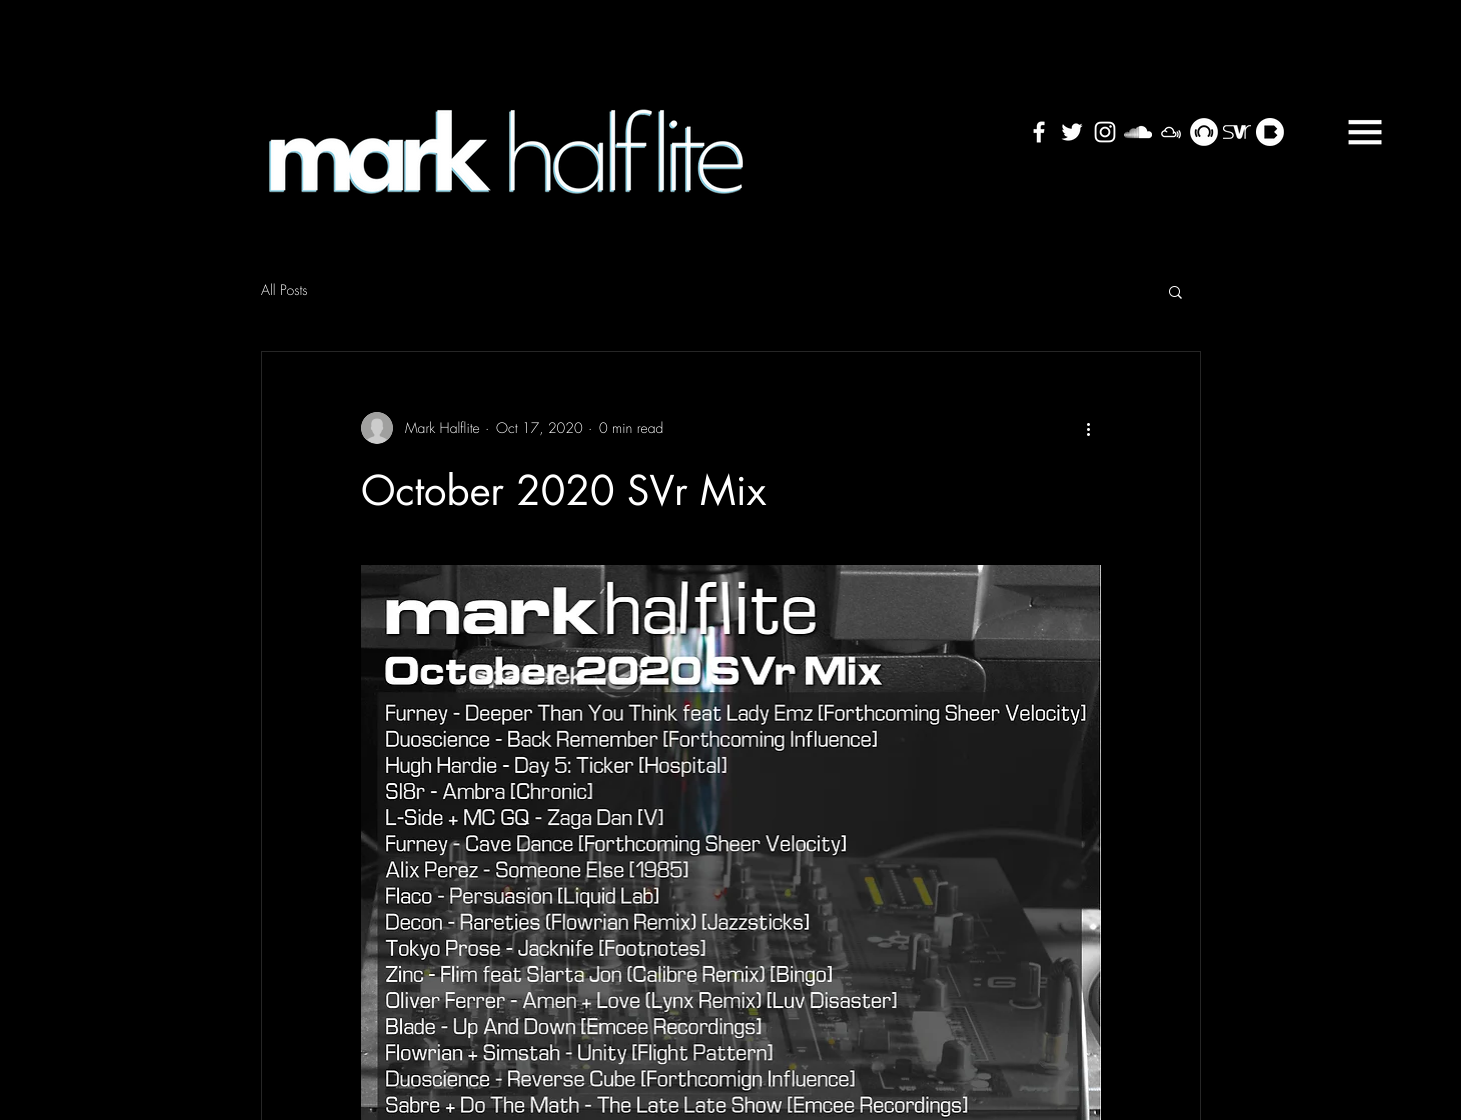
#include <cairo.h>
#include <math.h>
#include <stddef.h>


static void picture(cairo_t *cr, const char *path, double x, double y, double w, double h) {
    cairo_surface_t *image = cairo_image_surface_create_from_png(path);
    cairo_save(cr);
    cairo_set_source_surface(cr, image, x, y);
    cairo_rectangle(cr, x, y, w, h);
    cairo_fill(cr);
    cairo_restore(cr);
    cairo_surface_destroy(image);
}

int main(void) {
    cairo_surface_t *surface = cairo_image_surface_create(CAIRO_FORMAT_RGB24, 1461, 1120);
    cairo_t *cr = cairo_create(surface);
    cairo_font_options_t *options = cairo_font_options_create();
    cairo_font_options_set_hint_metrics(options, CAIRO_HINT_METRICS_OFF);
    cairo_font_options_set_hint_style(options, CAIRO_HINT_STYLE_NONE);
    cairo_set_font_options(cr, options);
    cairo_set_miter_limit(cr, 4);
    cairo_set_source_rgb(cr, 0, 0, 0);
    cairo_paint(cr);
    picture(cr, "img1.png", 269, 109, 474, 85);
    picture(cr, "img2.png", 1033, 121, 12, 22);
    picture(cr, "img3.png", 1061, 123, 22, 18);
    picture(cr, "img4.png", 1094, 121, 22, 22);
    picture(cr, "img5.png", 1124, 125, 28, 14);
    picture(cr, "img6.png", 1161, 126, 20, 13);
    picture(cr, "img7.png", 1190, 118, 28, 28);
    picture(cr, "img8.png", 1223, 125, 28, 14);
    picture(cr, "img9.png", 1256, 118, 28, 28);
    picture(cr, "img10.png", 1348, 119, 34, 26);
    cairo_select_font_face(cr, "futura Light", CAIRO_FONT_SLANT_NORMAL, CAIRO_FONT_WEIGHT_NORMAL);
    cairo_set_font_size(cr, 14);
    cairo_set_source_rgb(cr, 1, 1, 1);
    cairo_move_to(cr, 261, 295);
    cairo_show_text(cr, "All Posts");
    picture(cr, "img11.png", 1169, 286, 13, 13);
    cairo_rectangle(cr, 261.5, 351.5, 939, 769);
    cairo_set_source_rgb(cr, 0.149, 0.149, 0.149);
    cairo_set_line_width(cr, 1);
    cairo_stroke(cr);
    picture(cr, "img12.png", 361, 412, 32, 32);
    cairo_set_source_rgb(cr, 1, 1, 1);
    cairo_move_to(cr, 405, 433);
    cairo_show_text(cr, "Mark Halflite");
    cairo_move_to(cr, 485, 433);
    cairo_show_text(cr, "·");
    cairo_move_to(cr, 496, 433);
    cairo_show_text(cr, "Oct 17, 2020");
    cairo_move_to(cr, 588, 433);
    cairo_show_text(cr, "·");
    cairo_move_to(cr, 599, 433);
    cairo_show_text(cr, "0 min read");
    picture(cr, "img13.png", 1087, 423, 3, 13);
    cairo_select_font_face(cr, "futura", CAIRO_FONT_SLANT_NORMAL, CAIRO_FONT_WEIGHT_NORMAL);
    cairo_set_font_size(cr, 40);
    cairo_move_to(cr, 361, 505);
    cairo_show_text(cr, "October 2020 SVr Mix");
    picture(cr, "img14.png", 361, 565, 740, 555);
    cairo_surface_write_to_png(surface, "page.png");
    cairo_font_options_destroy(options);
    cairo_destroy(cr);
    cairo_surface_destroy(surface);
    return 0;
}
